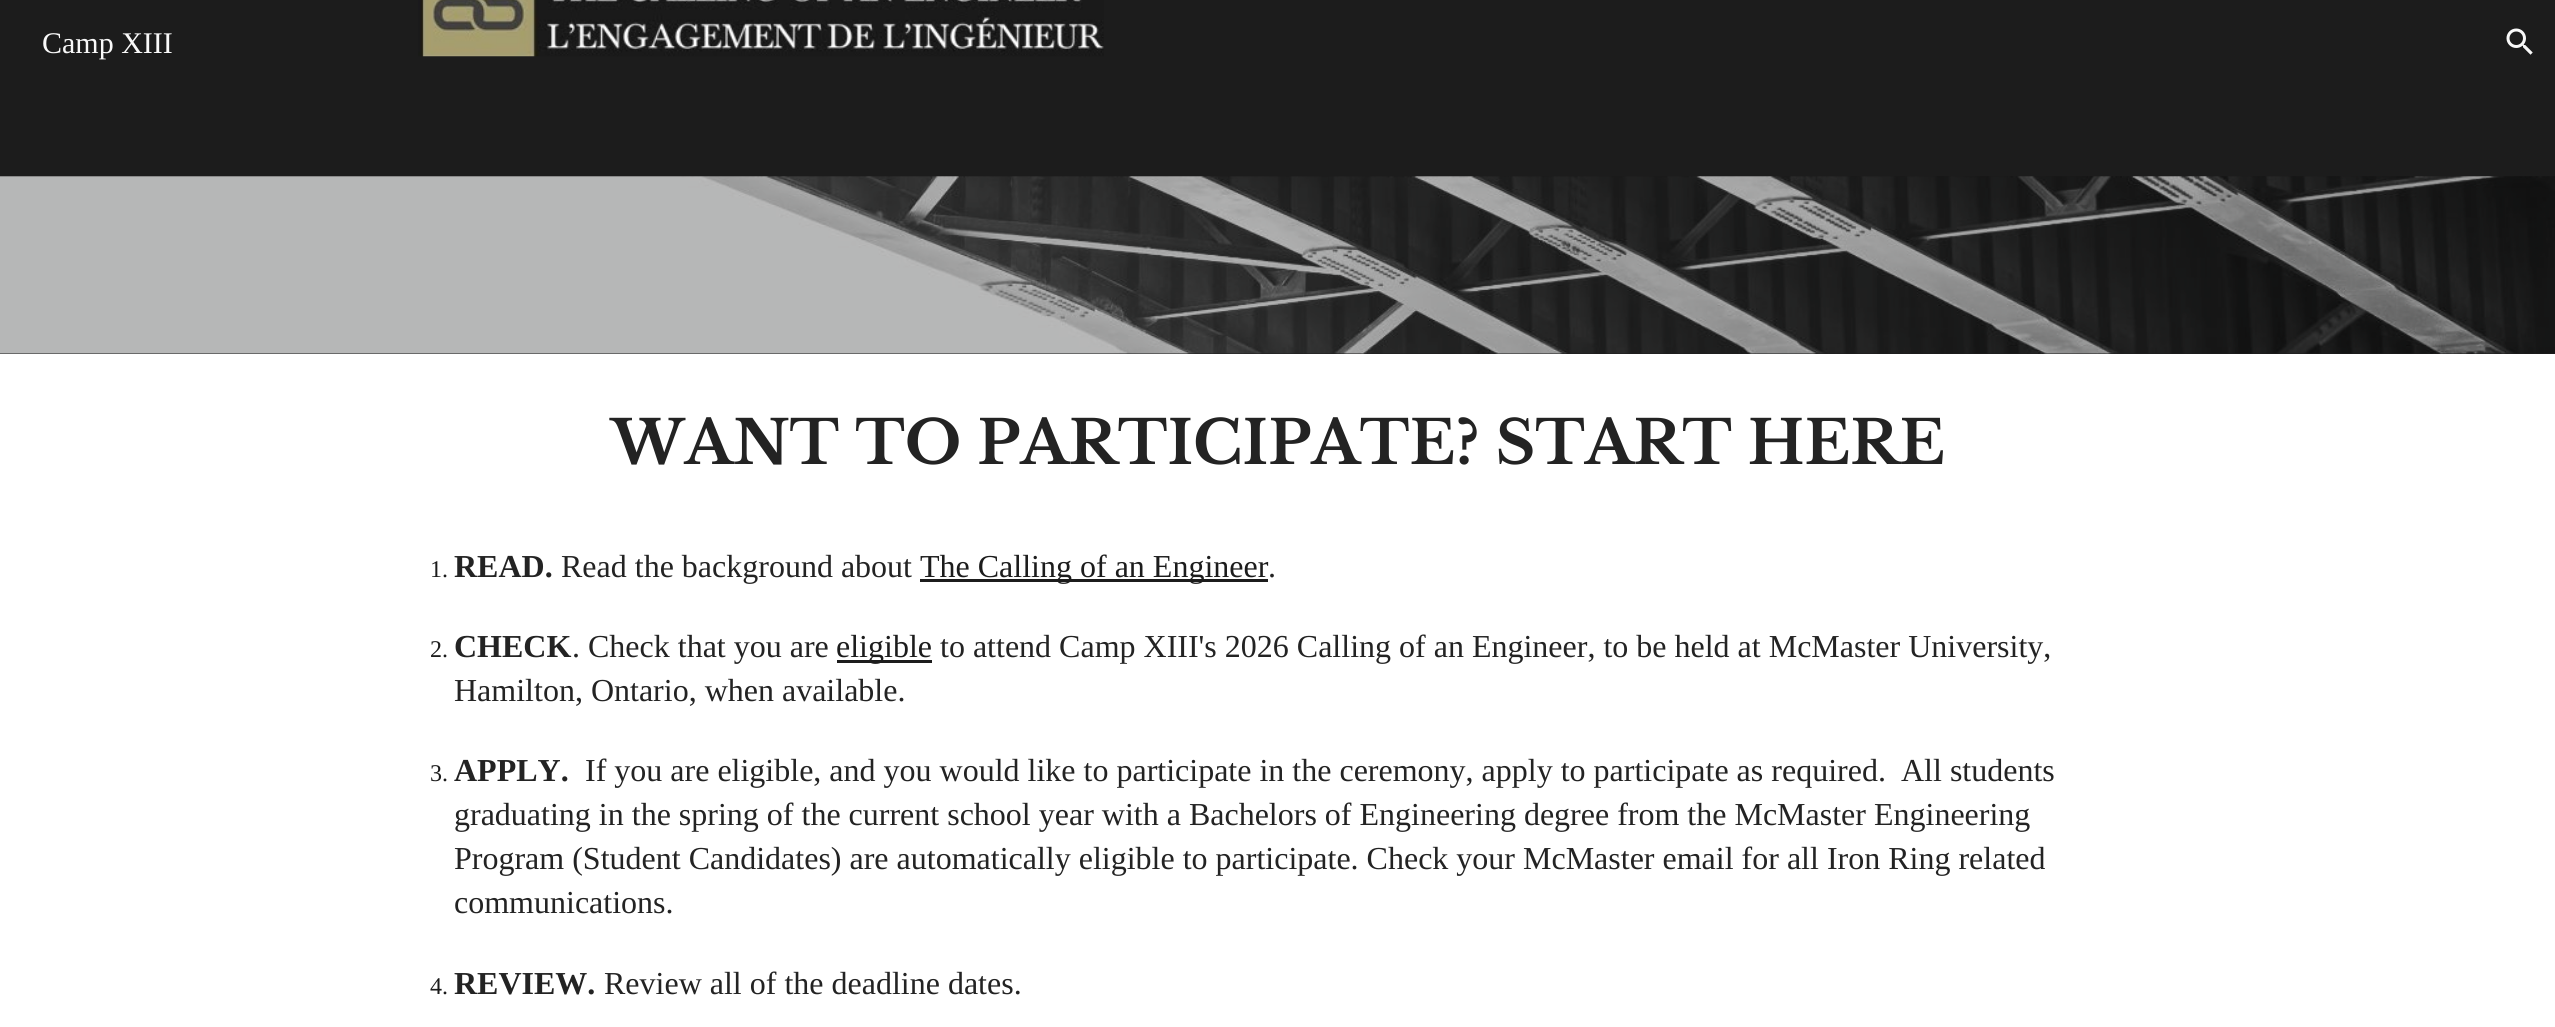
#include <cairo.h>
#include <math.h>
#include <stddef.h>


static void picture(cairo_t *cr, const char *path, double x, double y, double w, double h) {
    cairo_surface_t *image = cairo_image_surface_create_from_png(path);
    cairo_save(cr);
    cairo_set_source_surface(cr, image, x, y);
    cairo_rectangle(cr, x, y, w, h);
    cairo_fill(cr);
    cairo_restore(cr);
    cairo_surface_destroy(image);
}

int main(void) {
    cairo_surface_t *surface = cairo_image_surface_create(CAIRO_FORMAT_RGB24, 2555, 1027);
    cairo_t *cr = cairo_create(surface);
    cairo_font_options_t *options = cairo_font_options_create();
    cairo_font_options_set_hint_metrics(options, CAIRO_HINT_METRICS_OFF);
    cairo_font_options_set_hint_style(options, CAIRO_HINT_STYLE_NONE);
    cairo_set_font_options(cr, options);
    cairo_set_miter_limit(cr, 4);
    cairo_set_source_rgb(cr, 0.11, 0.11, 0.11);
    cairo_paint(cr);
    cairo_select_font_face(cr, "Liberation Serif", CAIRO_FONT_SLANT_NORMAL, CAIRO_FONT_WEIGHT_NORMAL);
    cairo_set_font_size(cr, 30);
    cairo_set_source_rgb(cr, 0.976, 0.976, 0.976);
    cairo_move_to(cr, 42, 53);
    cairo_show_text(cr, "Camp XIII");
    picture(cr, "img1.png", 2506, 28, 27, 27);
    picture(cr, "img2.png", 418, 0, 686, 57);
    picture(cr, "img3.png", 0, 176, 2555, 178);
    cairo_set_source_rgb(cr, 1, 1, 1);
    cairo_rectangle(cr, 0, 354, 2555, 673);
    cairo_fill(cr);
    cairo_select_font_face(cr, "Libre Baskerville", CAIRO_FONT_SLANT_NORMAL, CAIRO_FONT_WEIGHT_BOLD);
    cairo_set_font_size(cr, 60);
    cairo_set_source_rgb(cr, 0.137, 0.137, 0.137);
    cairo_move_to(cr, 611, 464);
    cairo_show_text(cr, "WANT TO PARTICIPATE? START HERE");
    cairo_select_font_face(cr, "Liberation Serif", CAIRO_FONT_SLANT_NORMAL, CAIRO_FONT_WEIGHT_NORMAL);
    cairo_set_font_size(cr, 24);
    cairo_set_source_rgb(cr, 0.11, 0.11, 0.11);
    cairo_move_to(cr, 430, 577);
    cairo_show_text(cr, "1.");
    cairo_select_font_face(cr, "Liberation Serif", CAIRO_FONT_SLANT_NORMAL, CAIRO_FONT_WEIGHT_BOLD);
    cairo_set_font_size(cr, 32);
    cairo_set_source_rgb(cr, 0.137, 0.137, 0.137);
    cairo_move_to(cr, 454, 577);
    cairo_show_text(cr, "READ.");
    cairo_select_font_face(cr, "Liberation Serif", CAIRO_FONT_SLANT_NORMAL, CAIRO_FONT_WEIGHT_NORMAL);
    cairo_move_to(cr, 561, 577);
    cairo_show_text(cr, "Read the background about");
    cairo_set_source_rgb(cr, 0.11, 0.11, 0.11);
    cairo_rectangle(cr, 920, 579, 348, 3);
    cairo_fill(cr);
    cairo_move_to(cr, 920, 577);
    cairo_show_text(cr, "The Calling of an Engineer");
    cairo_set_source_rgb(cr, 0.137, 0.137, 0.137);
    cairo_move_to(cr, 1268, 577);
    cairo_show_text(cr, ".");
    cairo_set_font_size(cr, 24);
    cairo_set_source_rgb(cr, 0.11, 0.11, 0.11);
    cairo_move_to(cr, 430, 657);
    cairo_show_text(cr, "2.");
    cairo_select_font_face(cr, "Liberation Serif", CAIRO_FONT_SLANT_NORMAL, CAIRO_FONT_WEIGHT_BOLD);
    cairo_set_font_size(cr, 32);
    cairo_set_source_rgb(cr, 0.137, 0.137, 0.137);
    cairo_move_to(cr, 454, 657);
    cairo_show_text(cr, "CHECK");
    cairo_select_font_face(cr, "Liberation Serif", CAIRO_FONT_SLANT_NORMAL, CAIRO_FONT_WEIGHT_NORMAL);
    cairo_move_to(cr, 572, 657);
    cairo_show_text(cr, ". Check that you are");
    cairo_set_source_rgb(cr, 0.11, 0.11, 0.11);
    cairo_rectangle(cr, 837, 660, 95, 3);
    cairo_fill(cr);
    cairo_move_to(cr, 836, 657);
    cairo_show_text(cr, "eligible");
    cairo_set_source_rgb(cr, 0.137, 0.137, 0.137);
    cairo_move_to(cr, 940, 657);
    cairo_show_text(cr, "to attend Camp XIII's 2026 Calling of an Engineer, to be held at McMaster University,");
    cairo_move_to(cr, 454, 701);
    cairo_show_text(cr, "Hamilton, Ontario, when available.");
    cairo_set_font_size(cr, 24);
    cairo_set_source_rgb(cr, 0.11, 0.11, 0.11);
    cairo_move_to(cr, 430, 781);
    cairo_show_text(cr, "3.");
    cairo_select_font_face(cr, "Liberation Serif", CAIRO_FONT_SLANT_NORMAL, CAIRO_FONT_WEIGHT_BOLD);
    cairo_set_font_size(cr, 32);
    cairo_set_source_rgb(cr, 0.137, 0.137, 0.137);
    cairo_move_to(cr, 454, 781);
    cairo_show_text(cr, "APPLY.");
    cairo_select_font_face(cr, "Liberation Serif", CAIRO_FONT_SLANT_NORMAL, CAIRO_FONT_WEIGHT_NORMAL);
    cairo_move_to(cr, 585, 781);
    cairo_show_text(cr, "If you are eligible, and you would like to participate in the ceremony, apply to participate as required.");
    cairo_move_to(cr, 1901, 781);
    cairo_show_text(cr, "All students");
    cairo_move_to(cr, 454, 825);
    cairo_show_text(cr, "graduating in the spring of the current school year with a Bachelors of Engineering degree from the McMaster Engineering");
    cairo_move_to(cr, 454, 869);
    cairo_show_text(cr, "Program (Student Candidates) are automatically eligible to participate. Check your McMaster email for all Iron Ring related");
    cairo_move_to(cr, 454, 913);
    cairo_show_text(cr, "communications.");
    cairo_set_font_size(cr, 24);
    cairo_set_source_rgb(cr, 0.11, 0.11, 0.11);
    cairo_move_to(cr, 430, 994);
    cairo_show_text(cr, "4.");
    cairo_select_font_face(cr, "Liberation Serif", CAIRO_FONT_SLANT_NORMAL, CAIRO_FONT_WEIGHT_BOLD);
    cairo_set_font_size(cr, 32);
    cairo_set_source_rgb(cr, 0.137, 0.137, 0.137);
    cairo_move_to(cr, 454, 994);
    cairo_show_text(cr, "REVIEW.");
    cairo_select_font_face(cr, "Liberation Serif", CAIRO_FONT_SLANT_NORMAL, CAIRO_FONT_WEIGHT_NORMAL);
    cairo_move_to(cr, 604, 994);
    cairo_show_text(cr, "Review all of the deadline dates.");
    cairo_surface_write_to_png(surface, "page.png");
    cairo_font_options_destroy(options);
    cairo_destroy(cr);
    cairo_surface_destroy(surface);
    return 0;
}
